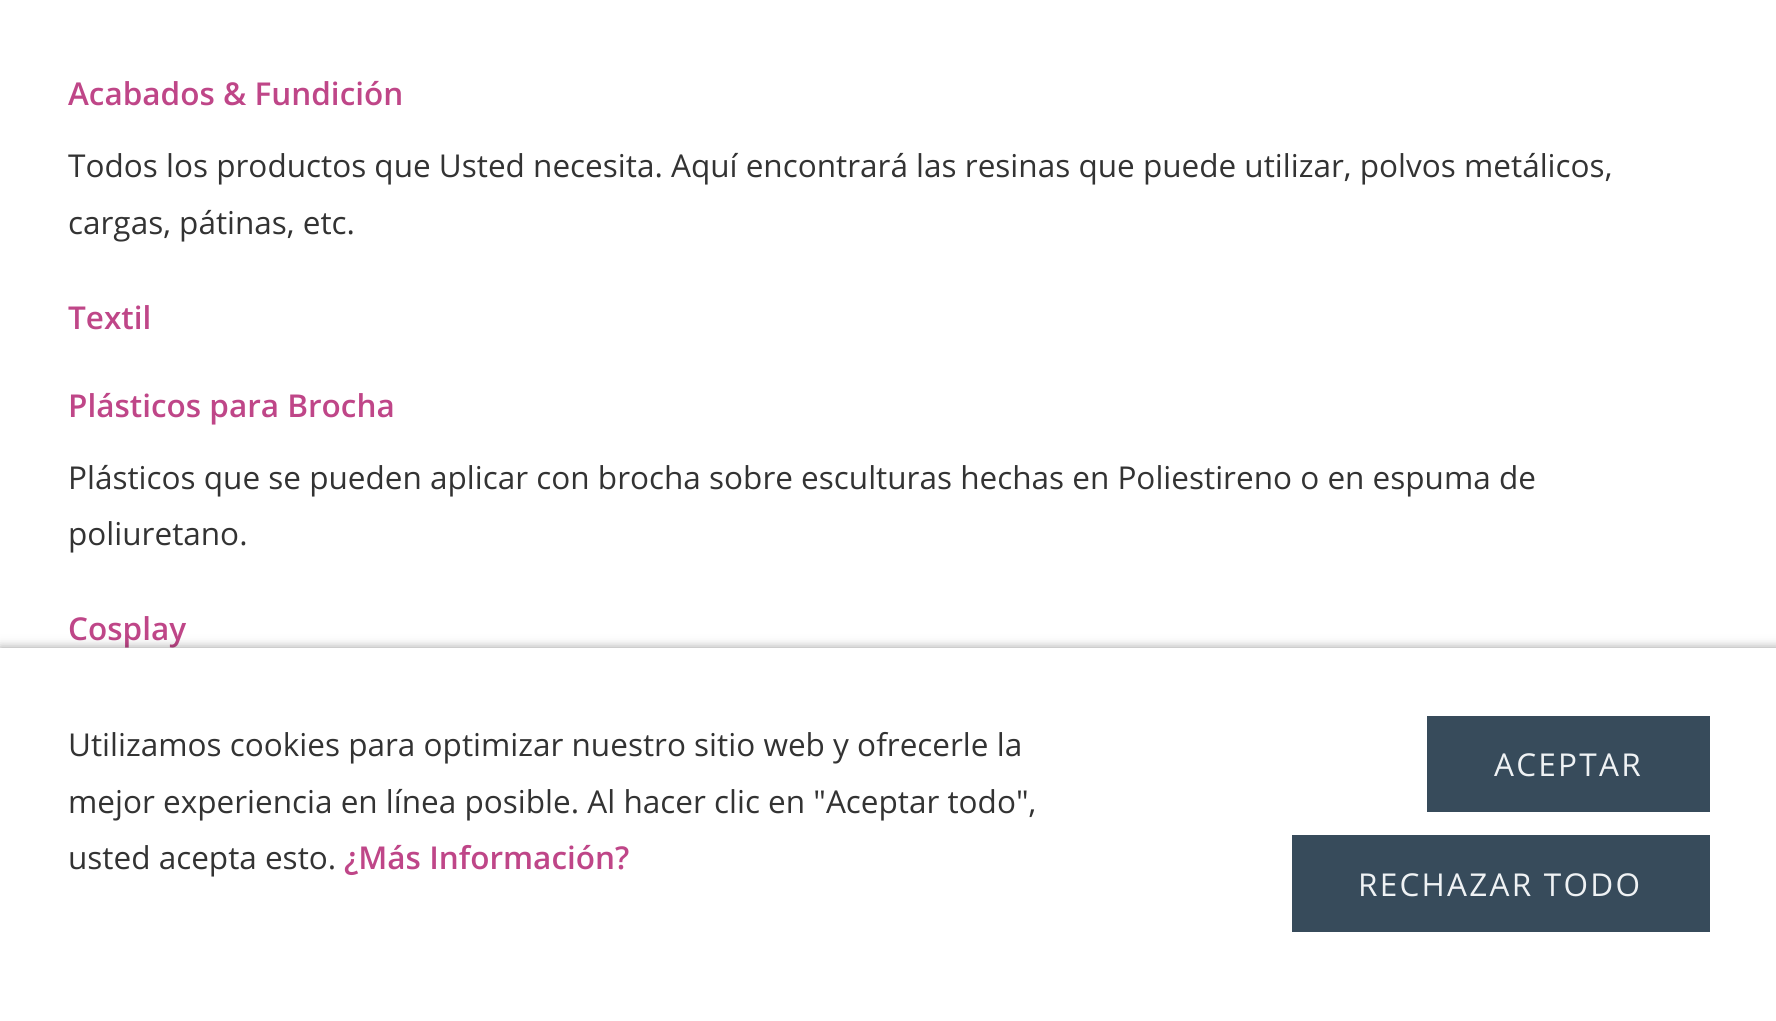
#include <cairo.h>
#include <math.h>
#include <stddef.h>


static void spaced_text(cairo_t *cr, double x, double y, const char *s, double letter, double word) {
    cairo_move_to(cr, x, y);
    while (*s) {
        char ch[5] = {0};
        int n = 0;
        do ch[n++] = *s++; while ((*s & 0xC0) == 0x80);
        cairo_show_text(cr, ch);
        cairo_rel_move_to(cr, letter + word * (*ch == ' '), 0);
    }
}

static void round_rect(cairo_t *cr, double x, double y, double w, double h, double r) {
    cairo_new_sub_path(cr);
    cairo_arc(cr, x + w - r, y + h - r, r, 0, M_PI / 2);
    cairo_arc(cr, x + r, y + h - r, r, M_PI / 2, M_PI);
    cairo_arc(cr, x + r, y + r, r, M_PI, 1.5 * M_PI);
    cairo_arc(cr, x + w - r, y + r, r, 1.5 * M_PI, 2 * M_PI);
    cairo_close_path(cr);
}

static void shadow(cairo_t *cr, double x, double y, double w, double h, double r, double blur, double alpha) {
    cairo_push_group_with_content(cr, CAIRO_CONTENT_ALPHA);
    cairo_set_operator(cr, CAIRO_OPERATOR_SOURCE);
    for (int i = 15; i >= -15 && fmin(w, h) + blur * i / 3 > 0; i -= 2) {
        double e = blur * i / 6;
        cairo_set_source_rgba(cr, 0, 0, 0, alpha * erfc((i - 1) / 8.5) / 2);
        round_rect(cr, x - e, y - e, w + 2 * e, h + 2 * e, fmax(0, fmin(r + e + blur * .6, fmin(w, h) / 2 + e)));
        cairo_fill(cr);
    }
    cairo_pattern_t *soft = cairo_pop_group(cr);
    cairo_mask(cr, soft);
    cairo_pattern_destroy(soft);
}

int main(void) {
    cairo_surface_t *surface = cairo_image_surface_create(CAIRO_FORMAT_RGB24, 1776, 1021);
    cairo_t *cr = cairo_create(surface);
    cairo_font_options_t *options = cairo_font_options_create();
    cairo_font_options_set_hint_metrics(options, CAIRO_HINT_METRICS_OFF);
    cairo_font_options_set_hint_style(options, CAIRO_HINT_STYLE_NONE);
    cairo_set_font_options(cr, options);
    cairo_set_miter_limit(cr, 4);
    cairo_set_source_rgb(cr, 1, 1, 1);
    cairo_paint(cr);
    cairo_select_font_face(cr, "Open Sans SemiBold", CAIRO_FONT_SLANT_NORMAL, CAIRO_FONT_WEIGHT_NORMAL);
    cairo_set_font_size(cr, 31.5);
    cairo_set_source_rgb(cr, 0.749, 0.275, 0.533);
    cairo_move_to(cr, 68, 105);
    cairo_show_text(cr, "Acabados & Fundición");
    cairo_select_font_face(cr, "Open Sans", CAIRO_FONT_SLANT_NORMAL, CAIRO_FONT_WEIGHT_NORMAL);
    cairo_set_source_rgb(cr, 0.2, 0.2, 0.2);
    cairo_move_to(cr, 68, 177);
    cairo_show_text(cr, "Todos los productos que Usted necesita. Aquí encontrará las resinas que puede utilizar, polvos metálicos,");
    cairo_move_to(cr, 68, 234);
    cairo_show_text(cr, "cargas, pátinas, etc.");
    cairo_select_font_face(cr, "Open Sans SemiBold", CAIRO_FONT_SLANT_NORMAL, CAIRO_FONT_WEIGHT_NORMAL);
    cairo_set_source_rgb(cr, 0.749, 0.275, 0.533);
    cairo_move_to(cr, 68, 329);
    cairo_show_text(cr, "Textil");
    cairo_move_to(cr, 68, 417);
    cairo_show_text(cr, "Plásticos para Brocha");
    cairo_select_font_face(cr, "Open Sans", CAIRO_FONT_SLANT_NORMAL, CAIRO_FONT_WEIGHT_NORMAL);
    cairo_set_source_rgb(cr, 0.2, 0.2, 0.2);
    cairo_move_to(cr, 68, 489);
    cairo_show_text(cr, "Plásticos que se pueden aplicar con brocha sobre esculturas hechas en Poliestireno o en espuma de");
    cairo_move_to(cr, 68, 545);
    cairo_show_text(cr, "poliuretano.");
    cairo_select_font_face(cr, "Open Sans SemiBold", CAIRO_FONT_SLANT_NORMAL, CAIRO_FONT_WEIGHT_NORMAL);
    cairo_set_source_rgb(cr, 0.749, 0.275, 0.533);
    cairo_move_to(cr, 68, 640);
    cairo_show_text(cr, "Cosplay");
    cairo_set_source_rgb(cr, 0, 0, 0);
    shadow(cr, 0, 648, 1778, 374, 0, 5.5, 0.4);
    cairo_set_source_rgb(cr, 1, 1, 1);
    cairo_rectangle(cr, 0, 648, 1776, 373);
    cairo_fill(cr);
    cairo_select_font_face(cr, "Open Sans", CAIRO_FONT_SLANT_NORMAL, CAIRO_FONT_WEIGHT_NORMAL);
    cairo_set_source_rgb(cr, 0.2, 0.2, 0.2);
    cairo_move_to(cr, 68, 756);
    cairo_show_text(cr, "Utilizamos cookies para optimizar nuestro sitio web y ofrecerle la");
    cairo_move_to(cr, 68, 813);
    cairo_show_text(cr, "mejor experiencia en línea posible. Al hacer clic en \"Aceptar todo\",");
    cairo_move_to(cr, 68, 869);
    cairo_show_text(cr, "usted acepta esto.");
    cairo_select_font_face(cr, "Open Sans SemiBold", CAIRO_FONT_SLANT_NORMAL, CAIRO_FONT_WEIGHT_NORMAL);
    cairo_set_source_rgb(cr, 0.749, 0.275, 0.533);
    cairo_move_to(cr, 344, 869);
    cairo_show_text(cr, "¿Más Información?");
    cairo_set_source_rgb(cr, 0.216, 0.294, 0.357);
    cairo_rectangle(cr, 1427, 716, 283, 96);
    cairo_fill(cr);
    cairo_select_font_face(cr, "Open Sans", CAIRO_FONT_SLANT_NORMAL, CAIRO_FONT_WEIGHT_NORMAL);
    cairo_set_source_rgb(cr, 0.937, 0.949, 0.957);
    spaced_text(cr, 1494, 776, "ACEPTAR", 2.25, 0);
    cairo_set_source_rgb(cr, 0.216, 0.294, 0.357);
    cairo_rectangle(cr, 1292, 835, 418, 97);
    cairo_fill(cr);
    cairo_set_source_rgb(cr, 0.937, 0.949, 0.957);
    spaced_text(cr, 1358, 896, "RECHAZAR TODO", 2.25, 0);
    cairo_surface_write_to_png(surface, "page.png");
    cairo_font_options_destroy(options);
    cairo_destroy(cr);
    cairo_surface_destroy(surface);
    return 0;
}
